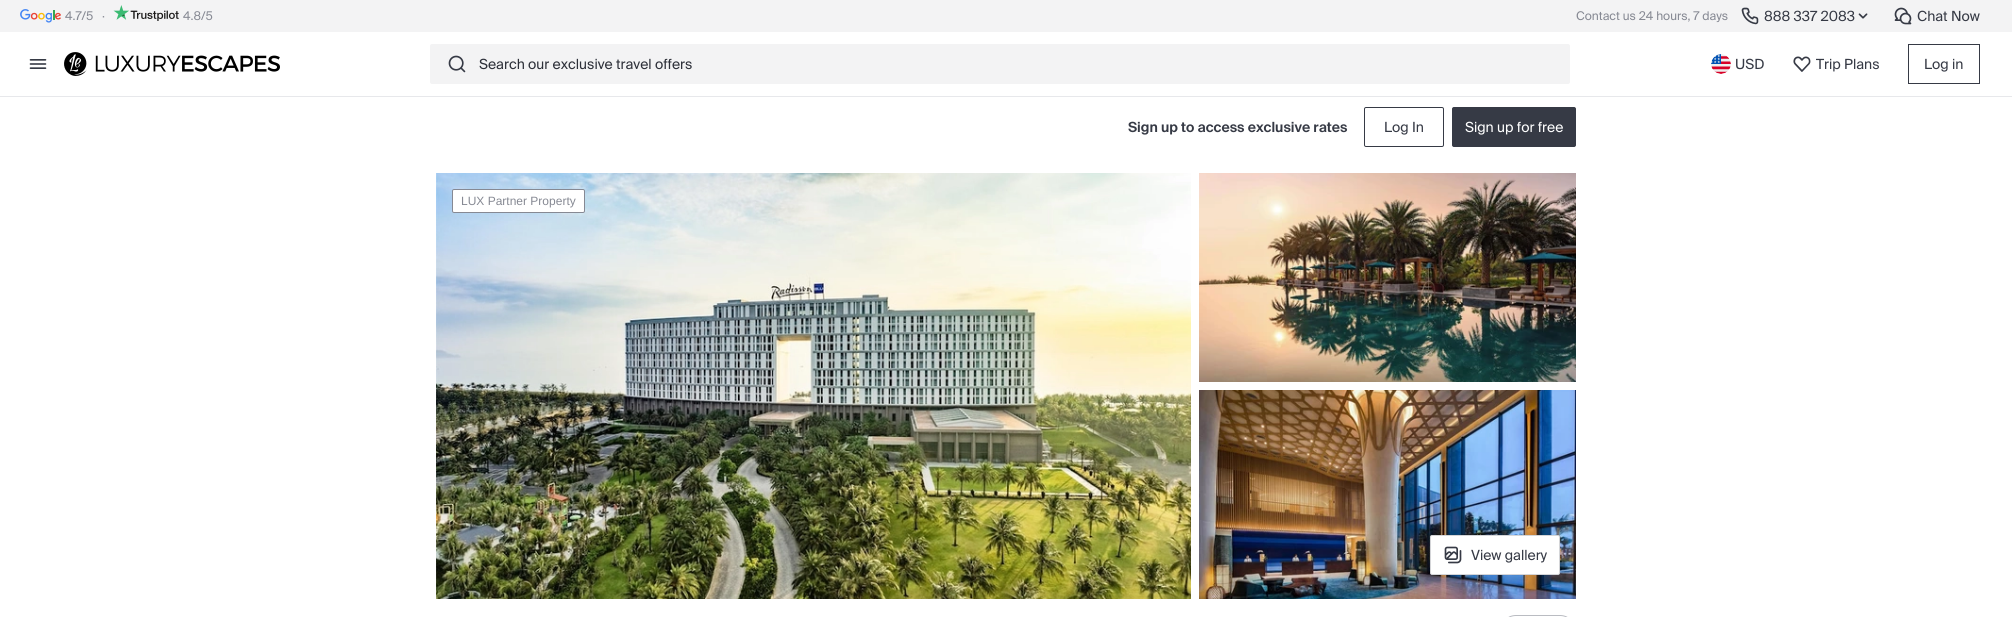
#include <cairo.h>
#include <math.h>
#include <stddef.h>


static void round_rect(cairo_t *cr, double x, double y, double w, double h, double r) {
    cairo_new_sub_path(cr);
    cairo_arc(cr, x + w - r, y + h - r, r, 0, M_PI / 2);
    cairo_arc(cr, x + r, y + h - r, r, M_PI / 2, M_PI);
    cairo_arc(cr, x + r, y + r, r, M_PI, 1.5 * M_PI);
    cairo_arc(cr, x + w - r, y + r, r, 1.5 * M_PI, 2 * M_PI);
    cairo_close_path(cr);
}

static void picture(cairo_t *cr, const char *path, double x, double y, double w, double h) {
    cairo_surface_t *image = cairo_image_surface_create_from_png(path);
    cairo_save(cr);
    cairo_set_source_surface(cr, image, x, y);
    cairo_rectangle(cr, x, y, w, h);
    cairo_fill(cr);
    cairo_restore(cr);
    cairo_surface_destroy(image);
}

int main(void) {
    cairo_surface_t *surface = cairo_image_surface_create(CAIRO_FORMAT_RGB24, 2012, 617);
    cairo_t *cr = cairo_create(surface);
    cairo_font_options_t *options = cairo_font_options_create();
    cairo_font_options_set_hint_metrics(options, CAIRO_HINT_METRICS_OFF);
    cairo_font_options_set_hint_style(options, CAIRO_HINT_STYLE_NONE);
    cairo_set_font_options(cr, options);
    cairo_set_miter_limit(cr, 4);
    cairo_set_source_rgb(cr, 1, 1, 1);
    cairo_paint(cr);
    cairo_set_source_rgb(cr, 0.953, 0.953, 0.957);
    cairo_rectangle(cr, 0, 0, 2012, 32);
    cairo_fill(cr);
    picture(cr, "img1.png", 20, 9, 41, 14);
    cairo_select_font_face(cr, "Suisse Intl", CAIRO_FONT_SLANT_NORMAL, CAIRO_FONT_WEIGHT_NORMAL);
    cairo_set_font_size(cr, 12);
    cairo_set_source_rgb(cr, 0.525, 0.537, 0.576);
    cairo_move_to(cr, 65, 20);
    cairo_show_text(cr, "4.7/5");
    cairo_move_to(cr, 102, 20);
    cairo_show_text(cr, "·");
    picture(cr, "img2.png", 113, 5, 66, 16);
    cairo_move_to(cr, 183, 20);
    cairo_show_text(cr, "4.8/5");
    cairo_move_to(cr, 1576, 20);
    cairo_show_text(cr, "Contact us 24 hours, 7 days");
    picture(cr, "img3.png", 1741, 7, 18, 18);
    cairo_set_font_size(cr, 14);
    cairo_set_source_rgb(cr, 0.212, 0.227, 0.271);
    cairo_move_to(cr, 1764, 21);
    cairo_show_text(cr, "888 337 2083");
    picture(cr, "img4.png", 1858, 13, 10, 6);
    picture(cr, "img5.png", 1894, 7, 18, 18);
    cairo_move_to(cr, 1917, 21);
    cairo_show_text(cr, "Chat Now");
    cairo_set_source_rgb(cr, 0.906, 0.91, 0.918);
    cairo_rectangle(cr, 0, 96, 2012, 1);
    cairo_fill(cr);
    picture(cr, "img6.png", 29, 59, 18, 10);
    picture(cr, "img7.png", 64, 52, 216, 24);
    cairo_set_source_rgb(cr, 0.953, 0.953, 0.957);
    round_rect(cr, 430, 44, 1140, 40, 2);
    cairo_fill(cr);
    picture(cr, "img8.png", 448, 55, 18, 18);
    cairo_set_source_rgb(cr, 0.176, 0.188, 0.224);
    cairo_move_to(cr, 479, 69);
    cairo_show_text(cr, "Search our exclusive travel offers");
    picture(cr, "img9.png", 1711, 54, 20, 20);
    cairo_set_source_rgb(cr, 0.212, 0.227, 0.271);
    cairo_move_to(cr, 1735, 69);
    cairo_show_text(cr, "USD");
    picture(cr, "img10.png", 1793, 56, 18, 16);
    cairo_move_to(cr, 1816, 69);
    cairo_show_text(cr, "Trip Plans");
    cairo_rectangle(cr, 1908.5, 44.5, 71, 39);
    cairo_set_line_width(cr, 1);
    cairo_stroke(cr);
    cairo_move_to(cr, 1924, 69);
    cairo_show_text(cr, "Log in");
    cairo_select_font_face(cr, "Suisse Intl SemiBold", CAIRO_FONT_SLANT_NORMAL, CAIRO_FONT_WEIGHT_NORMAL);
    cairo_move_to(cr, 1128, 132);
    cairo_show_text(cr, "Sign up to access exclusive rates");
    round_rect(cr, 1364.5, 107.5, 79, 39, 1.5);
    cairo_stroke(cr);
    cairo_select_font_face(cr, "Suisse Intl", CAIRO_FONT_SLANT_NORMAL, CAIRO_FONT_WEIGHT_NORMAL);
    cairo_move_to(cr, 1384, 132);
    cairo_show_text(cr, "Log In");
    round_rect(cr, 1452.5, 107.5, 123, 39, 1.5);
    cairo_fill_preserve(cr);
    cairo_stroke(cr);
    cairo_set_source_rgb(cr, 1, 1, 1);
    cairo_move_to(cr, 1465, 132);
    cairo_show_text(cr, "Sign up for free");
    picture(cr, "img11.png", 436, 173, 755, 426);
    picture(cr, "img12.png", 1199, 173, 377, 209);
    round_rect(cr, 452.5, 189.5, 132, 23, 1.5);
    cairo_fill_preserve(cr);
    cairo_set_source_rgb(cr, 0.525, 0.537, 0.576);
    cairo_stroke(cr);
    cairo_select_font_face(cr, "Liberation Sans", CAIRO_FONT_SLANT_NORMAL, CAIRO_FONT_WEIGHT_NORMAL);
    cairo_set_font_size(cr, 12);
    cairo_move_to(cr, 461, 205);
    cairo_show_text(cr, "LUX Partner Property");
    picture(cr, "img13.png", 1199, 390, 377, 209);
    cairo_set_source_rgb(cr, 1, 1, 1);
    round_rect(cr, 1430.5, 535.5, 129, 39, 1.5);
    cairo_fill_preserve(cr);
    cairo_set_source_rgb(cr, 0.831, 0.835, 0.847);
    cairo_stroke(cr);
    picture(cr, "img14.png", 1444, 546, 18, 18);
    cairo_select_font_face(cr, "Suisse Intl", CAIRO_FONT_SLANT_NORMAL, CAIRO_FONT_WEIGHT_NORMAL);
    cairo_set_font_size(cr, 14);
    cairo_set_source_rgb(cr, 0.212, 0.227, 0.271);
    cairo_move_to(cr, 1471, 560);
    cairo_show_text(cr, "View gallery");
    round_rect(cr, 1500.5, 615.5, 75, 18, 15.5);
    cairo_set_source_rgb(cr, 0.729, 0.737, 0.761);
    cairo_stroke(cr);
    cairo_surface_write_to_png(surface, "page.png");
    cairo_font_options_destroy(options);
    cairo_destroy(cr);
    cairo_surface_destroy(surface);
    return 0;
}
